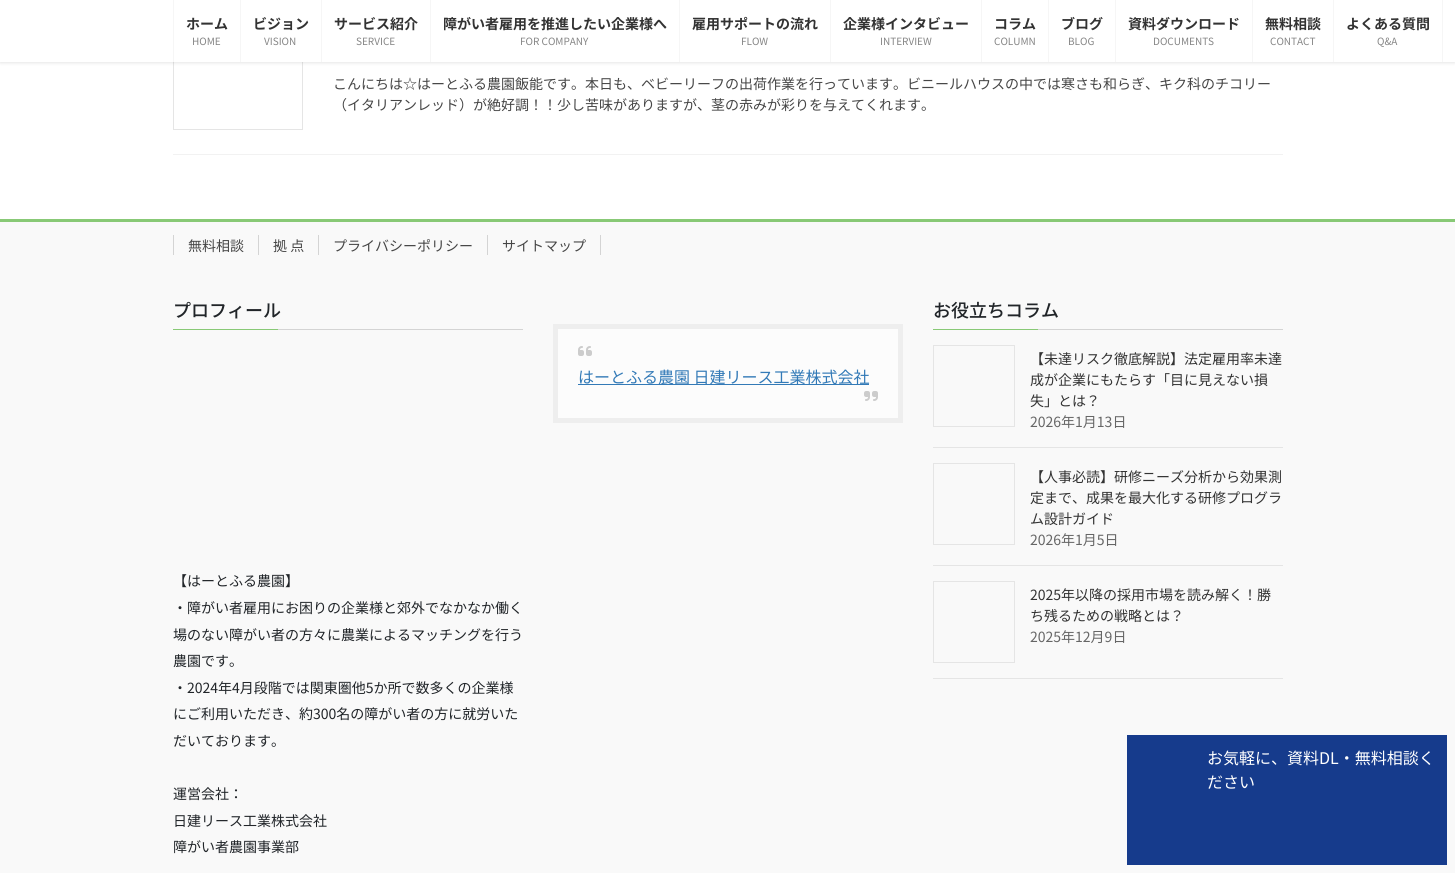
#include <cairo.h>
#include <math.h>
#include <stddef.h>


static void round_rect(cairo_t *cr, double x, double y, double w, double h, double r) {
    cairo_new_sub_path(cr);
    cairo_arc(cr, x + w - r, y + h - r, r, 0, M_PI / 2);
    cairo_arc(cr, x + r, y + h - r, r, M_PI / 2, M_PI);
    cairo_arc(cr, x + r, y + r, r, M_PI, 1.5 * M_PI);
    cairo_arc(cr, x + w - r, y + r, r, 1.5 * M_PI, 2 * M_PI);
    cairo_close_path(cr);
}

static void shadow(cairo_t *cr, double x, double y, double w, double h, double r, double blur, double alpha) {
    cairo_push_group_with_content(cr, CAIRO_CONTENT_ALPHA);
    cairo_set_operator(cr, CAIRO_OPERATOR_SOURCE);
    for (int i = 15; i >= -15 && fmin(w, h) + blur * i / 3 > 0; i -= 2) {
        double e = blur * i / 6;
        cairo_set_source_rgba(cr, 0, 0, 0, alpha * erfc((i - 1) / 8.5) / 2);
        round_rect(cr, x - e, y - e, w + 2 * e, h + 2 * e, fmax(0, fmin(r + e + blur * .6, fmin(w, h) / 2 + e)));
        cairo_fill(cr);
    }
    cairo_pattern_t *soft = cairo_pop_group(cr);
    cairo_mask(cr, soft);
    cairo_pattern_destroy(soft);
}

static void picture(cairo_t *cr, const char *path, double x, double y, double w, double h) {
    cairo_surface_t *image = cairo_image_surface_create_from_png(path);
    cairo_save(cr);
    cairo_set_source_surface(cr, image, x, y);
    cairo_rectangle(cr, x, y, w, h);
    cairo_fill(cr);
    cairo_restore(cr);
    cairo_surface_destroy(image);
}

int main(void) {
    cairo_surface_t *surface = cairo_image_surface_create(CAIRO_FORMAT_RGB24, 1455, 873);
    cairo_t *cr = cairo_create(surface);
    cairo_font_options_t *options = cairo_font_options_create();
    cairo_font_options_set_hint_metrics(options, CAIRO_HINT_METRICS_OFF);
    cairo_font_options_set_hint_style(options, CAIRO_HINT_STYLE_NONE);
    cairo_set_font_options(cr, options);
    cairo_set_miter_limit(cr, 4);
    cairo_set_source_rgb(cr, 1, 1, 1);
    cairo_paint(cr);
    cairo_rectangle(cr, 173.5, 0.5, 129, 129);
    cairo_set_source_rgb(cr, 0.898, 0.898, 0.898);
    cairo_set_line_width(cr, 1);
    cairo_stroke(cr);
    cairo_set_source_rgb(cr, 0, 0, 0);
    shadow(cr, 0, 1, 1455, 62, 0, 1.5, 0.1);
    cairo_set_source_rgb(cr, 1, 1, 1);
    cairo_rectangle(cr, 0, 0, 1455, 62);
    cairo_fill(cr);
    cairo_set_source_rgb(cr, 0.961, 0.961, 0.961);
    cairo_rectangle(cr, 173, 0, 1, 62);
    cairo_fill(cr);
    cairo_select_font_face(cr, "Noto Sans JP", CAIRO_FONT_SLANT_NORMAL, CAIRO_FONT_WEIGHT_BOLD);
    cairo_set_font_size(cr, 14);
    cairo_set_source_rgb(cr, 0.2, 0.2, 0.2);
    cairo_move_to(cr, 186, 29);
    cairo_show_text(cr, "ホーム");
    cairo_select_font_face(cr, "Noto Sans JP", CAIRO_FONT_SLANT_NORMAL, CAIRO_FONT_WEIGHT_NORMAL);
    cairo_set_font_size(cr, 10);
    cairo_set_source_rgb(cr, 0.522, 0.522, 0.522);
    cairo_move_to(cr, 192, 45);
    cairo_show_text(cr, "HOME");
    cairo_set_source_rgb(cr, 0.961, 0.961, 0.961);
    cairo_rectangle(cr, 240, 0, 1, 62);
    cairo_fill(cr);
    cairo_select_font_face(cr, "Noto Sans JP", CAIRO_FONT_SLANT_NORMAL, CAIRO_FONT_WEIGHT_BOLD);
    cairo_set_font_size(cr, 14);
    cairo_set_source_rgb(cr, 0.2, 0.2, 0.2);
    cairo_move_to(cr, 253, 29);
    cairo_show_text(cr, "ビジョン");
    cairo_select_font_face(cr, "Noto Sans JP", CAIRO_FONT_SLANT_NORMAL, CAIRO_FONT_WEIGHT_NORMAL);
    cairo_set_font_size(cr, 10);
    cairo_set_source_rgb(cr, 0.522, 0.522, 0.522);
    cairo_move_to(cr, 264, 45);
    cairo_show_text(cr, "VISION");
    cairo_set_source_rgb(cr, 0.961, 0.961, 0.961);
    cairo_rectangle(cr, 321, 0, 1, 62);
    cairo_fill(cr);
    cairo_select_font_face(cr, "Noto Sans JP", CAIRO_FONT_SLANT_NORMAL, CAIRO_FONT_WEIGHT_BOLD);
    cairo_set_font_size(cr, 14);
    cairo_set_source_rgb(cr, 0.2, 0.2, 0.2);
    cairo_move_to(cr, 334, 29);
    cairo_show_text(cr, "サービス紹介");
    cairo_select_font_face(cr, "Noto Sans JP", CAIRO_FONT_SLANT_NORMAL, CAIRO_FONT_WEIGHT_NORMAL);
    cairo_set_font_size(cr, 10);
    cairo_set_source_rgb(cr, 0.522, 0.522, 0.522);
    cairo_move_to(cr, 356, 45);
    cairo_show_text(cr, "SERVICE");
    cairo_set_source_rgb(cr, 0.961, 0.961, 0.961);
    cairo_rectangle(cr, 430, 0, 1, 62);
    cairo_fill(cr);
    cairo_select_font_face(cr, "Noto Sans JP", CAIRO_FONT_SLANT_NORMAL, CAIRO_FONT_WEIGHT_BOLD);
    cairo_set_font_size(cr, 14);
    cairo_set_source_rgb(cr, 0.2, 0.2, 0.2);
    cairo_move_to(cr, 443, 29);
    cairo_show_text(cr, "障がい者雇用を推進したい企業様へ");
    cairo_select_font_face(cr, "Noto Sans JP", CAIRO_FONT_SLANT_NORMAL, CAIRO_FONT_WEIGHT_NORMAL);
    cairo_set_font_size(cr, 10);
    cairo_set_source_rgb(cr, 0.522, 0.522, 0.522);
    cairo_move_to(cr, 520, 45);
    cairo_show_text(cr, "FOR COMPANY");
    cairo_set_source_rgb(cr, 0.961, 0.961, 0.961);
    cairo_rectangle(cr, 679, 0, 1, 62);
    cairo_fill(cr);
    cairo_select_font_face(cr, "Noto Sans JP", CAIRO_FONT_SLANT_NORMAL, CAIRO_FONT_WEIGHT_BOLD);
    cairo_set_font_size(cr, 14);
    cairo_set_source_rgb(cr, 0.2, 0.2, 0.2);
    cairo_move_to(cr, 692, 29);
    cairo_show_text(cr, "雇用サポートの流れ");
    cairo_select_font_face(cr, "Noto Sans JP", CAIRO_FONT_SLANT_NORMAL, CAIRO_FONT_WEIGHT_NORMAL);
    cairo_set_font_size(cr, 10);
    cairo_set_source_rgb(cr, 0.522, 0.522, 0.522);
    cairo_move_to(cr, 741, 45);
    cairo_show_text(cr, "FLOW");
    cairo_set_source_rgb(cr, 0.961, 0.961, 0.961);
    cairo_rectangle(cr, 830, 0, 1, 62);
    cairo_fill(cr);
    cairo_select_font_face(cr, "Noto Sans JP", CAIRO_FONT_SLANT_NORMAL, CAIRO_FONT_WEIGHT_BOLD);
    cairo_set_font_size(cr, 14);
    cairo_set_source_rgb(cr, 0.2, 0.2, 0.2);
    cairo_move_to(cr, 843, 29);
    cairo_show_text(cr, "企業様インタビュー");
    cairo_select_font_face(cr, "Noto Sans JP", CAIRO_FONT_SLANT_NORMAL, CAIRO_FONT_WEIGHT_NORMAL);
    cairo_set_font_size(cr, 10);
    cairo_set_source_rgb(cr, 0.522, 0.522, 0.522);
    cairo_move_to(cr, 880, 45);
    cairo_show_text(cr, "INTERVIEW");
    cairo_set_source_rgb(cr, 0.961, 0.961, 0.961);
    cairo_rectangle(cr, 981, 0, 1, 62);
    cairo_fill(cr);
    cairo_select_font_face(cr, "Noto Sans JP", CAIRO_FONT_SLANT_NORMAL, CAIRO_FONT_WEIGHT_BOLD);
    cairo_set_font_size(cr, 14);
    cairo_set_source_rgb(cr, 0.2, 0.2, 0.2);
    cairo_move_to(cr, 994, 29);
    cairo_show_text(cr, "コラム");
    cairo_select_font_face(cr, "Noto Sans JP", CAIRO_FONT_SLANT_NORMAL, CAIRO_FONT_WEIGHT_NORMAL);
    cairo_set_font_size(cr, 10);
    cairo_set_source_rgb(cr, 0.522, 0.522, 0.522);
    cairo_move_to(cr, 994, 45);
    cairo_show_text(cr, "COLUMN");
    cairo_set_source_rgb(cr, 0.961, 0.961, 0.961);
    cairo_rectangle(cr, 1048, 0, 1, 62);
    cairo_fill(cr);
    cairo_select_font_face(cr, "Noto Sans JP", CAIRO_FONT_SLANT_NORMAL, CAIRO_FONT_WEIGHT_BOLD);
    cairo_set_font_size(cr, 14);
    cairo_set_source_rgb(cr, 0.2, 0.2, 0.2);
    cairo_move_to(cr, 1061, 29);
    cairo_show_text(cr, "ブログ");
    cairo_select_font_face(cr, "Noto Sans JP", CAIRO_FONT_SLANT_NORMAL, CAIRO_FONT_WEIGHT_NORMAL);
    cairo_set_font_size(cr, 10);
    cairo_set_source_rgb(cr, 0.522, 0.522, 0.522);
    cairo_move_to(cr, 1068, 45);
    cairo_show_text(cr, "BLOG");
    cairo_set_source_rgb(cr, 0.961, 0.961, 0.961);
    cairo_rectangle(cr, 1115, 0, 1, 62);
    cairo_fill(cr);
    cairo_select_font_face(cr, "Noto Sans JP", CAIRO_FONT_SLANT_NORMAL, CAIRO_FONT_WEIGHT_BOLD);
    cairo_set_font_size(cr, 14);
    cairo_set_source_rgb(cr, 0.2, 0.2, 0.2);
    cairo_move_to(cr, 1128, 29);
    cairo_show_text(cr, "資料ダウンロード");
    cairo_select_font_face(cr, "Noto Sans JP", CAIRO_FONT_SLANT_NORMAL, CAIRO_FONT_WEIGHT_NORMAL);
    cairo_set_font_size(cr, 10);
    cairo_set_source_rgb(cr, 0.522, 0.522, 0.522);
    cairo_move_to(cr, 1153, 45);
    cairo_show_text(cr, "DOCUMENTS");
    cairo_set_source_rgb(cr, 0.961, 0.961, 0.961);
    cairo_rectangle(cr, 1252, 0, 1, 62);
    cairo_fill(cr);
    cairo_select_font_face(cr, "Noto Sans JP", CAIRO_FONT_SLANT_NORMAL, CAIRO_FONT_WEIGHT_BOLD);
    cairo_set_font_size(cr, 14);
    cairo_set_source_rgb(cr, 0.2, 0.2, 0.2);
    cairo_move_to(cr, 1265, 29);
    cairo_show_text(cr, "無料相談");
    cairo_select_font_face(cr, "Noto Sans JP", CAIRO_FONT_SLANT_NORMAL, CAIRO_FONT_WEIGHT_NORMAL);
    cairo_set_font_size(cr, 10);
    cairo_set_source_rgb(cr, 0.522, 0.522, 0.522);
    cairo_move_to(cr, 1270, 45);
    cairo_show_text(cr, "CONTACT");
    cairo_set_source_rgb(cr, 0.961, 0.961, 0.961);
    cairo_rectangle(cr, 1442, 0, 1, 62);
    cairo_fill(cr);
    cairo_rectangle(cr, 1333, 0, 1, 62);
    cairo_fill(cr);
    cairo_select_font_face(cr, "Noto Sans JP", CAIRO_FONT_SLANT_NORMAL, CAIRO_FONT_WEIGHT_BOLD);
    cairo_set_font_size(cr, 14);
    cairo_set_source_rgb(cr, 0.2, 0.2, 0.2);
    cairo_move_to(cr, 1346, 29);
    cairo_show_text(cr, "よくある質問");
    cairo_select_font_face(cr, "Noto Sans JP", CAIRO_FONT_SLANT_NORMAL, CAIRO_FONT_WEIGHT_NORMAL);
    cairo_set_font_size(cr, 10);
    cairo_set_source_rgb(cr, 0.522, 0.522, 0.522);
    cairo_move_to(cr, 1377, 45);
    cairo_show_text(cr, "Q&A");
    cairo_set_source_rgb(cr, 0.949, 0.949, 0.949);
    cairo_rectangle(cr, 173, 154, 1110, 1);
    cairo_fill(cr);
    cairo_set_font_size(cr, 14);
    cairo_set_source_rgb(cr, 0.275, 0.275, 0.275);
    cairo_move_to(cr, 333, 89);
    cairo_show_text(cr, "こんにちは☆はーとふる農園飯能です。本日も、ベビーリーフの出荷作業を行っています。ビニールハウスの中では寒さも和らぎ、キク科のチコリー");
    cairo_move_to(cr, 333, 110);
    cairo_show_text(cr, "（イタリアンレッド）が絶好調！！少し苦味がありますが、茎の赤みが彩りを与えてくれます。");
    cairo_set_source_rgb(cr, 0.976, 0.976, 0.976);
    cairo_rectangle(cr, 0, 222, 1455, 651);
    cairo_fill(cr);
    cairo_set_source_rgb(cr, 0.533, 0.788, 0.463);
    cairo_rectangle(cr, 0, 219, 1455, 3);
    cairo_fill(cr);
    cairo_set_source_rgb(cr, 0.275, 0.275, 0.275);
    cairo_move_to(cr, 188, 251);
    cairo_show_text(cr, "無料相談");
    cairo_set_source_rgb(cr, 0.831, 0.831, 0.831);
    cairo_rectangle(cr, 173, 235, 1, 20);
    cairo_fill(cr);
    cairo_set_source_rgb(cr, 0.275, 0.275, 0.275);
    cairo_move_to(cr, 273, 251);
    cairo_show_text(cr, "拠 点");
    cairo_set_source_rgb(cr, 0.831, 0.831, 0.831);
    cairo_rectangle(cr, 258, 235, 1, 20);
    cairo_fill(cr);
    cairo_set_source_rgb(cr, 0.275, 0.275, 0.275);
    cairo_move_to(cr, 333, 251);
    cairo_show_text(cr, "プライバシーポリシー");
    cairo_set_source_rgb(cr, 0.831, 0.831, 0.831);
    cairo_rectangle(cr, 318, 235, 1, 20);
    cairo_fill(cr);
    cairo_set_source_rgb(cr, 0.275, 0.275, 0.275);
    cairo_move_to(cr, 502, 251);
    cairo_show_text(cr, "サイトマップ");
    cairo_set_source_rgb(cr, 0.831, 0.831, 0.831);
    cairo_rectangle(cr, 600, 235, 1, 20);
    cairo_fill(cr);
    cairo_rectangle(cr, 487, 235, 1, 20);
    cairo_fill(cr);
    cairo_rectangle(cr, 278, 329, 245, 1);
    cairo_fill(cr);
    cairo_select_font_face(cr, "Noto Sans JP Medium", CAIRO_FONT_SLANT_NORMAL, CAIRO_FONT_WEIGHT_NORMAL);
    cairo_set_font_size(cr, 18);
    cairo_set_source_rgb(cr, 0.129, 0.145, 0.161);
    cairo_move_to(cr, 173, 317);
    cairo_show_text(cr, "プロフィール");
    cairo_set_source_rgb(cr, 0.533, 0.788, 0.463);
    cairo_rectangle(cr, 173, 329, 105, 1);
    cairo_fill(cr);
    cairo_select_font_face(cr, "Noto Sans JP", CAIRO_FONT_SLANT_NORMAL, CAIRO_FONT_WEIGHT_NORMAL);
    cairo_set_font_size(cr, 14);
    cairo_set_source_rgb(cr, 0.129, 0.145, 0.161);
    cairo_move_to(cr, 173, 586);
    cairo_show_text(cr, "【はーとふる農園】");
    cairo_move_to(cr, 173, 613);
    cairo_show_text(cr, "・障がい者雇用にお困りの企業様と郊外でなかなか働く");
    cairo_move_to(cr, 173, 640);
    cairo_show_text(cr, "場のない障がい者の方々に農業によるマッチングを行う");
    cairo_move_to(cr, 173, 666);
    cairo_show_text(cr, "農園です。");
    cairo_move_to(cr, 173, 693);
    cairo_show_text(cr, "・2024年4月段階では関東圏他5か所で数多くの企業様");
    cairo_move_to(cr, 173, 719);
    cairo_show_text(cr, "にご利用いただき、約300名の障がい者の方に就労いた");
    cairo_move_to(cr, 173, 746);
    cairo_show_text(cr, "だいております。");
    cairo_move_to(cr, 173, 799);
    cairo_show_text(cr, "運営会社：");
    cairo_move_to(cr, 173, 826);
    cairo_show_text(cr, "日建リース工業株式会社");
    cairo_move_to(cr, 173, 852);
    cairo_show_text(cr, "障がい者農園事業部");
    cairo_set_source_rgb(cr, 0.988, 0.988, 0.988);
    cairo_rectangle(cr, 555.5, 326.5, 345, 94);
    cairo_fill_preserve(cr);
    cairo_set_source_rgb(cr, 0.933, 0.933, 0.933);
    cairo_set_line_width(cr, 5);
    cairo_stroke(cr);
    picture(cr, "img1.png", 578, 346, 14, 10);
    cairo_set_source_rgb(cr, 0.2, 0.478, 0.718);
    cairo_rectangle(cr, 578, 384, 291, 1);
    cairo_fill(cr);
    cairo_set_font_size(cr, 16);
    cairo_move_to(cr, 578, 383);
    cairo_show_text(cr, "はーとふる農園 日建リース工業株式会社");
    picture(cr, "img2.png", 864, 391, 14, 10);
    cairo_set_source_rgb(cr, 0.831, 0.831, 0.831);
    cairo_rectangle(cr, 1038, 329, 245, 1);
    cairo_fill(cr);
    cairo_select_font_face(cr, "Noto Sans JP Medium", CAIRO_FONT_SLANT_NORMAL, CAIRO_FONT_WEIGHT_NORMAL);
    cairo_set_font_size(cr, 18);
    cairo_set_source_rgb(cr, 0.129, 0.145, 0.161);
    cairo_move_to(cr, 933, 317);
    cairo_show_text(cr, "お役立ちコラム");
    cairo_set_source_rgb(cr, 0.533, 0.788, 0.463);
    cairo_rectangle(cr, 933, 329, 105, 1);
    cairo_fill(cr);
    cairo_set_source_rgb(cr, 0.898, 0.898, 0.898);
    cairo_rectangle(cr, 933, 447, 350, 1);
    cairo_fill(cr);
    cairo_rectangle(cr, 933.5, 345.5, 81, 81);
    cairo_set_line_width(cr, 1);
    cairo_stroke(cr);
    cairo_select_font_face(cr, "Noto Sans JP", CAIRO_FONT_SLANT_NORMAL, CAIRO_FONT_WEIGHT_NORMAL);
    cairo_set_font_size(cr, 14);
    cairo_set_source_rgb(cr, 0.2, 0.2, 0.2);
    cairo_move_to(cr, 1030, 364);
    cairo_show_text(cr, "【未達リスク徹底解説】法定雇用率未達");
    cairo_move_to(cr, 1030, 385);
    cairo_show_text(cr, "成が企業にもたらす「目に見えない損");
    cairo_move_to(cr, 1030, 406);
    cairo_show_text(cr, "失」とは？");
    cairo_set_source_rgb(cr, 0.4, 0.4, 0.4);
    cairo_move_to(cr, 1030, 427);
    cairo_show_text(cr, "2026年1月13日");
    cairo_set_source_rgb(cr, 0.898, 0.898, 0.898);
    cairo_rectangle(cr, 933, 565, 350, 1);
    cairo_fill(cr);
    cairo_rectangle(cr, 933.5, 463.5, 81, 81);
    cairo_stroke(cr);
    cairo_set_source_rgb(cr, 0.2, 0.2, 0.2);
    cairo_move_to(cr, 1030, 482);
    cairo_show_text(cr, "【人事必読】研修ニーズ分析から効果測");
    cairo_move_to(cr, 1030, 503);
    cairo_show_text(cr, "定まで、成果を最大化する研修プログラ");
    cairo_move_to(cr, 1030, 524);
    cairo_show_text(cr, "ム設計ガイド");
    cairo_set_source_rgb(cr, 0.4, 0.4, 0.4);
    cairo_move_to(cr, 1030, 545);
    cairo_show_text(cr, "2026年1月5日");
    cairo_set_source_rgb(cr, 0.898, 0.898, 0.898);
    cairo_rectangle(cr, 933, 678, 350, 1);
    cairo_fill(cr);
    cairo_rectangle(cr, 933.5, 581.5, 81, 81);
    cairo_stroke(cr);
    cairo_set_source_rgb(cr, 0.2, 0.2, 0.2);
    cairo_move_to(cr, 1030, 600);
    cairo_show_text(cr, "2025年以降の採用市場を読み解く！勝");
    cairo_move_to(cr, 1030, 621);
    cairo_show_text(cr, "ち残るための戦略とは？");
    cairo_set_source_rgb(cr, 0.4, 0.4, 0.4);
    cairo_move_to(cr, 1030, 642);
    cairo_show_text(cr, "2025年12月9日");
    cairo_set_source_rgb(cr, 0.086, 0.231, 0.549);
    cairo_rectangle(cr, 1127, 735, 320, 130);
    cairo_fill(cr);
    cairo_set_font_size(cr, 16);
    cairo_set_source_rgb(cr, 1, 1, 1);
    cairo_move_to(cr, 1207, 764);
    cairo_show_text(cr, "お気軽に、資料DL・無料相談く");
    cairo_move_to(cr, 1207, 788);
    cairo_show_text(cr, "ださい");
    cairo_surface_write_to_png(surface, "page.png");
    cairo_font_options_destroy(options);
    cairo_destroy(cr);
    cairo_surface_destroy(surface);
    return 0;
}
